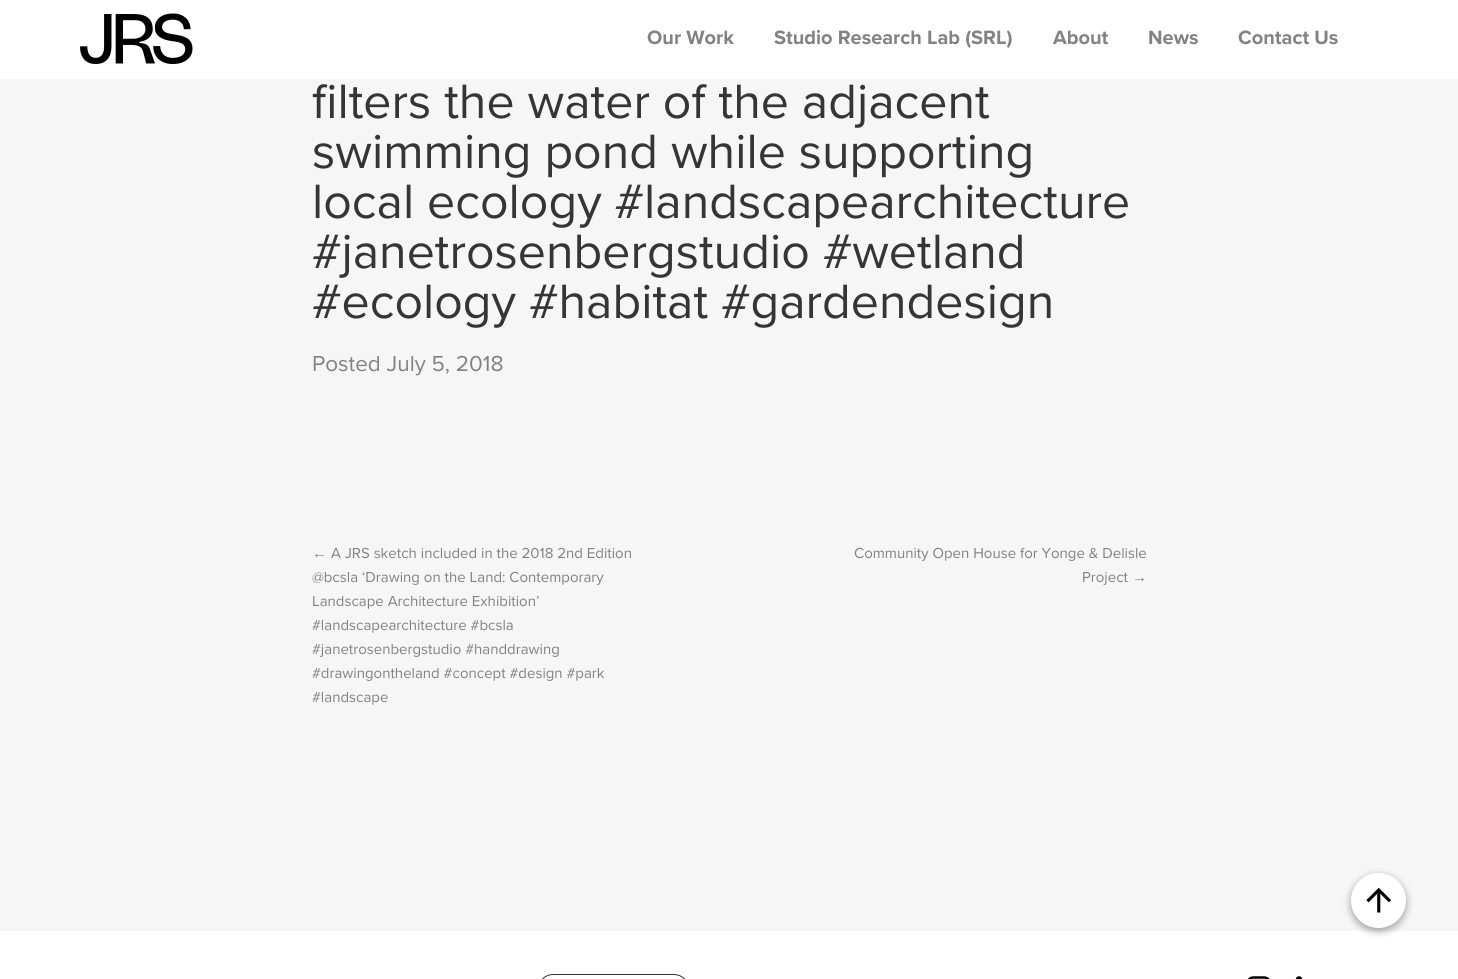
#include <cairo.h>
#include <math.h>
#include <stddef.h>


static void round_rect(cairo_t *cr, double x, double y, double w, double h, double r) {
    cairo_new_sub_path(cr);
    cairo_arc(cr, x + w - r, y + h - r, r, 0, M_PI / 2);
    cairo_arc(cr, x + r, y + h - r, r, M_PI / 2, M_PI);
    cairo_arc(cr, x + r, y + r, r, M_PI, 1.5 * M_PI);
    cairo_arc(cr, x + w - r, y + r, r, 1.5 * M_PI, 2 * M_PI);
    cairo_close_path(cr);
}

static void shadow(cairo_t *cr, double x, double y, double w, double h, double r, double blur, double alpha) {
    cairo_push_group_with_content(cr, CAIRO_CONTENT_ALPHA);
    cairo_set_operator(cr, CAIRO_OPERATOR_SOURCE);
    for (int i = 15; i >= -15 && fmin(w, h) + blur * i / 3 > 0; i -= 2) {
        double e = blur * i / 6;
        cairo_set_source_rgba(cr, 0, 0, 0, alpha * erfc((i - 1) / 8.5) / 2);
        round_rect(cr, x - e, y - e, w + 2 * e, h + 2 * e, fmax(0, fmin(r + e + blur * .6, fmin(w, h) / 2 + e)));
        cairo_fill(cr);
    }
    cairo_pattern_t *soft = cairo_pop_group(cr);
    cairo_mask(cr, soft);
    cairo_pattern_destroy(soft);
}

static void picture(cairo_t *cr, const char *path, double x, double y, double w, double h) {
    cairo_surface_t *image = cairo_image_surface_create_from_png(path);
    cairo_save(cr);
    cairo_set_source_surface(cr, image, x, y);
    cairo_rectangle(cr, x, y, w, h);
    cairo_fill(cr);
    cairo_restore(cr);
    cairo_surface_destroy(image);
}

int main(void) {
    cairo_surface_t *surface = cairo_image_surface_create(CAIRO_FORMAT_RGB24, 1458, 979);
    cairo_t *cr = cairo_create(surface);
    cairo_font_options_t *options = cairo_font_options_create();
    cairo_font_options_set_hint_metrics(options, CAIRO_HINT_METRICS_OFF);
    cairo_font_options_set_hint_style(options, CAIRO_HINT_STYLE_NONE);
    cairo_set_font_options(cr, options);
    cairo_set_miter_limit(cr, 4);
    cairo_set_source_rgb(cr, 1, 1, 1);
    cairo_paint(cr);
    picture(cr, "img1.png", 80, 13, 113, 51);
    cairo_select_font_face(cr, "Proxima Nova", CAIRO_FONT_SLANT_NORMAL, CAIRO_FONT_WEIGHT_BOLD);
    cairo_set_font_size(cr, 20);
    cairo_set_source_rgb(cr, 0.51, 0.51, 0.51);
    cairo_move_to(cr, 647, 44);
    cairo_show_text(cr, "Our Work");
    cairo_move_to(cr, 774, 44);
    cairo_show_text(cr, "Studio Research Lab (SRL)");
    cairo_move_to(cr, 1053, 44);
    cairo_show_text(cr, "About");
    cairo_move_to(cr, 1148, 44);
    cairo_show_text(cr, "News");
    cairo_move_to(cr, 1238, 44);
    cairo_show_text(cr, "Contact Us");
    cairo_set_source_rgb(cr, 0.961, 0.961, 0.961);
    cairo_rectangle(cr, 0, 79, 1458, 852);
    cairo_fill(cr);
    cairo_select_font_face(cr, "Proxima Nova", CAIRO_FONT_SLANT_NORMAL, CAIRO_FONT_WEIGHT_NORMAL);
    cairo_set_font_size(cr, 50);
    cairo_set_source_rgb(cr, 0.208, 0.208, 0.208);
    cairo_move_to(cr, 312, 118);
    cairo_show_text(cr, "filters the water of the adjacent");
    cairo_move_to(cr, 312, 168);
    cairo_show_text(cr, "swimming pond while supporting");
    cairo_move_to(cr, 312, 218);
    cairo_show_text(cr, "local ecology #landscapearchitecture");
    cairo_move_to(cr, 312, 268);
    cairo_show_text(cr, "#janetrosenbergstudio #wetland");
    cairo_move_to(cr, 312, 318);
    cairo_show_text(cr, "#ecology #habitat #gardendesign");
    cairo_set_font_size(cr, 22.5);
    cairo_set_source_rgb(cr, 0.51, 0.51, 0.51);
    cairo_move_to(cr, 312, 371);
    cairo_show_text(cr, "Posted July 5, 2018");
    cairo_select_font_face(cr, "Liberation Sans", CAIRO_FONT_SLANT_NORMAL, CAIRO_FONT_WEIGHT_NORMAL);
    cairo_set_font_size(cr, 15);
    cairo_move_to(cr, 312, 558);
    cairo_show_text(cr, "←");
    cairo_select_font_face(cr, "Proxima Nova", CAIRO_FONT_SLANT_NORMAL, CAIRO_FONT_WEIGHT_NORMAL);
    cairo_move_to(cr, 331, 558);
    cairo_show_text(cr, "A JRS sketch included in the 2018 2nd Edition");
    cairo_move_to(cr, 312, 582);
    cairo_show_text(cr, "@bcsla ‘Drawing on the Land: Contemporary");
    cairo_move_to(cr, 312, 606);
    cairo_show_text(cr, "Landscape Architecture Exhibition’");
    cairo_move_to(cr, 312, 630);
    cairo_show_text(cr, "#landscapearchitecture #bcsla");
    cairo_move_to(cr, 312, 654);
    cairo_show_text(cr, "#janetrosenbergstudio #handdrawing");
    cairo_move_to(cr, 312, 678);
    cairo_show_text(cr, "#drawingontheland #concept #design #park");
    cairo_move_to(cr, 312, 702);
    cairo_show_text(cr, "#landscape");
    cairo_move_to(cr, 854, 558);
    cairo_show_text(cr, "Community Open House for Yonge & Delisle");
    cairo_move_to(cr, 1082, 582);
    cairo_show_text(cr, "Project");
    cairo_select_font_face(cr, "Liberation Sans", CAIRO_FONT_SLANT_NORMAL, CAIRO_FONT_WEIGHT_NORMAL);
    cairo_move_to(cr, 1132, 582);
    cairo_show_text(cr, "→");
    cairo_set_source_rgb(cr, 0, 0, 0);
    shadow(cr, 1351, 876, 55, 55, 27.5, 4, 0.23);
    shadow(cr, 1351, 876, 55, 55, 27.5, 4, 0.16);
    cairo_set_source_rgb(cr, 1, 1, 1);
    cairo_arc(cr, 1378.5, 900.5, 27.5, 0, 2 * M_PI);
    cairo_fill(cr);
    picture(cr, "img2.png", 1366, 887, 25, 26);
    round_rect(cr, 538.5, 974.5, 150, 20, 14.5);
    cairo_set_source_rgb(cr, 0.208, 0.208, 0.208);
    cairo_set_line_width(cr, 1);
    cairo_stroke(cr);
    picture(cr, "img3.png", 1248, 976, 22, 3);
    picture(cr, "img4.png", 1295, 976, 7, 3);
    cairo_surface_write_to_png(surface, "page.png");
    cairo_font_options_destroy(options);
    cairo_destroy(cr);
    cairo_surface_destroy(surface);
    return 0;
}
